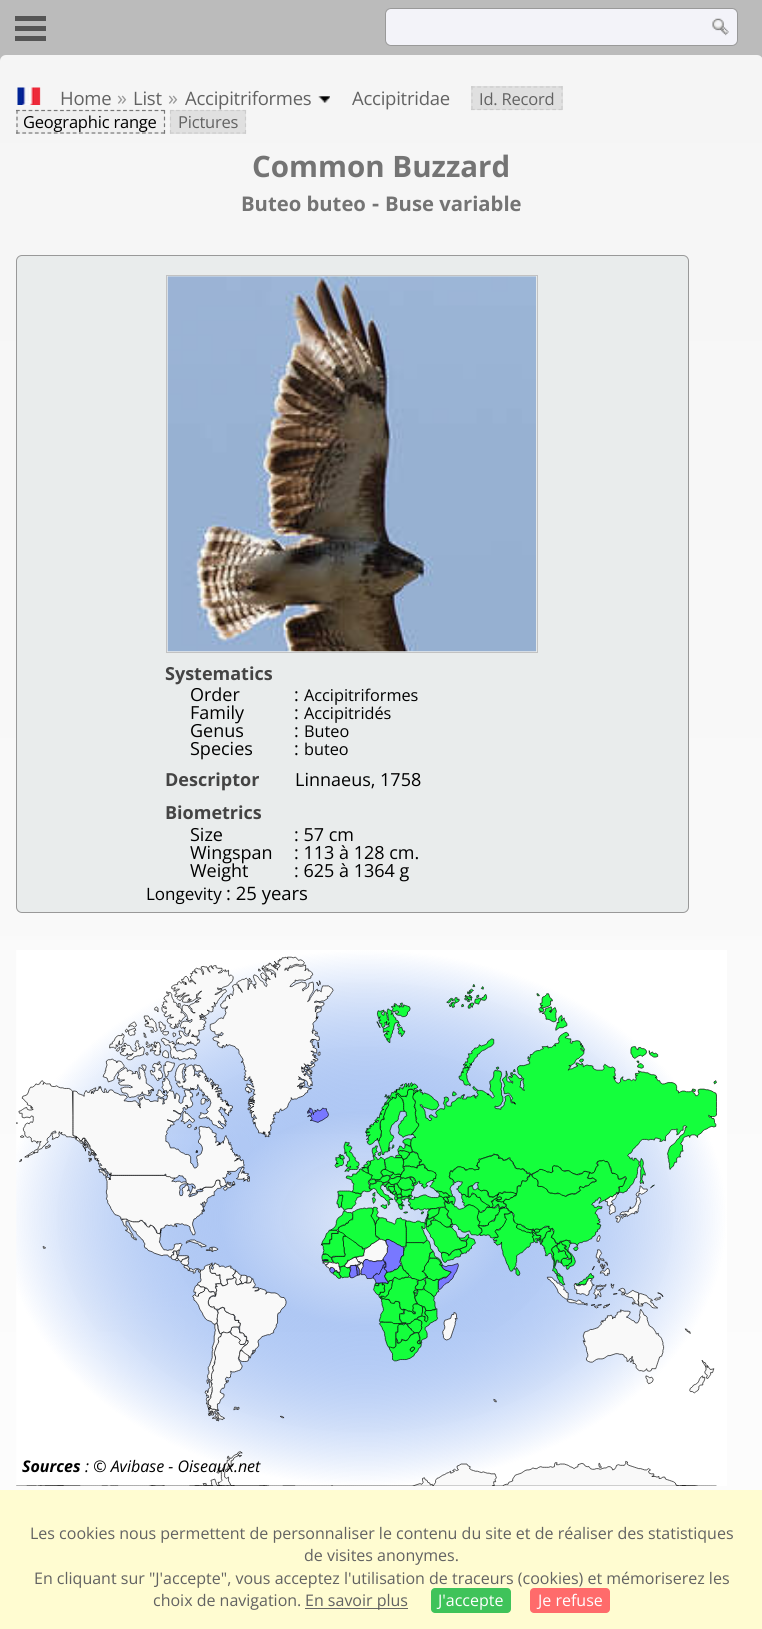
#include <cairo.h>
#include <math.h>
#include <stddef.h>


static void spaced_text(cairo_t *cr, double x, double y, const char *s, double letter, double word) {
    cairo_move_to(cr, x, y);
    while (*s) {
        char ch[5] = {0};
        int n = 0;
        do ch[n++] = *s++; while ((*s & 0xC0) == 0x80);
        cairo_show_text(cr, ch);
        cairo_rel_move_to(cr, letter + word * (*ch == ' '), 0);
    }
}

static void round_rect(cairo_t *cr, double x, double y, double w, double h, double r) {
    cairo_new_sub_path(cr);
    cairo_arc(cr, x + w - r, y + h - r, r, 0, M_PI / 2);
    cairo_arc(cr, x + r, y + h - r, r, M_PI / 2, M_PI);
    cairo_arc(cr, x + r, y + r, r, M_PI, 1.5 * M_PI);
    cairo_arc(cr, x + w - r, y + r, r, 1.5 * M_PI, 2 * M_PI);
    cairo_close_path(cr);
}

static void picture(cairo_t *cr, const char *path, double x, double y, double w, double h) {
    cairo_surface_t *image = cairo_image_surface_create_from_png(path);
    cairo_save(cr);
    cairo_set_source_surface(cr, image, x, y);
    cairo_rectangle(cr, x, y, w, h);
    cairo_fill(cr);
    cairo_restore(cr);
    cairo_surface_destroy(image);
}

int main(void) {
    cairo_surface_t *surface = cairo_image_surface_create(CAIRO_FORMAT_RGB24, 762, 1629);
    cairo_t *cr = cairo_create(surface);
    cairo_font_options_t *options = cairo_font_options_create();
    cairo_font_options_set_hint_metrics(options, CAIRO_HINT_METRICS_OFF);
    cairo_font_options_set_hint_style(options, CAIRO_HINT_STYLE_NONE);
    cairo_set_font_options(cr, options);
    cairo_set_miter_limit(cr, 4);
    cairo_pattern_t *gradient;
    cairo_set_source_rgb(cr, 1, 1, 1);
    cairo_paint(cr);
    gradient = cairo_pattern_create_linear(381, 0, 381, 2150);
    cairo_pattern_add_color_stop_rgba(gradient, 0, 0.733, 0.733, 0.733, 1);
    cairo_pattern_add_color_stop_rgba(gradient, 0.15, 0.733, 0.733, 0.733, 1);
    cairo_pattern_add_color_stop_rgba(gradient, 0.26, 0.867, 0.867, 0.867, 1);
    cairo_pattern_add_color_stop_rgba(gradient, 0.9, 1, 1, 1, 1);
    cairo_pattern_add_color_stop_rgba(gradient, 1, 1, 1, 1, 1);
    cairo_set_source(cr, gradient);
    cairo_pattern_destroy(gradient);
    cairo_rectangle(cr, 0, 0, 762, 61);
    cairo_fill(cr);
    cairo_set_source_rgb(cr, 0.333, 0.333, 0.333);
    cairo_rectangle(cr, 15, 36, 31, 5);
    cairo_fill(cr);
    cairo_rectangle(cr, 15, 26, 31, 5);
    cairo_fill(cr);
    cairo_rectangle(cr, 15, 16, 31, 5);
    cairo_fill(cr);
    cairo_set_source_rgb(cr, 0.953, 0.953, 0.973);
    round_rect(cr, 385.5, 8.5, 352, 37, 5.5);
    cairo_fill_preserve(cr);
    cairo_set_source_rgb(cr, 0.6, 0.6, 0.6);
    cairo_set_line_width(cr, 1);
    cairo_stroke(cr);
    picture(cr, "img1.png", 712, 18, 17, 18);
    gradient = cairo_pattern_create_linear(381, 55, 381, 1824);
    cairo_pattern_add_color_stop_rgba(gradient, 0, 0.961, 0.961, 0.961, 1);
    cairo_pattern_add_color_stop_rgba(gradient, 1, 0.996, 0.996, 0.996, 1);
    cairo_set_source(cr, gradient);
    cairo_pattern_destroy(gradient);
    round_rect(cr, 0, 55, 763, 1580, 6);
    cairo_fill(cr);
    picture(cr, "img2.png", 17, 87, 24, 18);
    cairo_select_font_face(cr, "Open Sans", CAIRO_FONT_SLANT_NORMAL, CAIRO_FONT_WEIGHT_NORMAL);
    cairo_set_font_size(cr, 18.5);
    cairo_set_source_rgb(cr, 0.384, 0.384, 0.384);
    spaced_text(cr, 60, 105, "Home", -0.25, 0);
    cairo_set_font_size(cr, 20);
    cairo_set_source_rgb(cr, 0.6, 0.6, 0.6);
    cairo_move_to(cr, 117, 105);
    cairo_show_text(cr, "»");
    cairo_set_font_size(cr, 18.5);
    cairo_set_source_rgb(cr, 0.384, 0.384, 0.384);
    spaced_text(cr, 133, 105, "List", -0.25, 0);
    cairo_set_font_size(cr, 20);
    cairo_set_source_rgb(cr, 0.6, 0.6, 0.6);
    cairo_move_to(cr, 168, 105);
    cairo_show_text(cr, "»");
    cairo_set_font_size(cr, 18.5);
    cairo_set_source_rgb(cr, 0.384, 0.384, 0.384);
    spaced_text(cr, 185, 105, "Accipitriformes", -0.25, 0);
    picture(cr, "img3.png", 318, 96, 12, 7);
    spaced_text(cr, 352, 105, "Accipitridae", -0.25, 0);
    cairo_set_source_rgb(cr, 0.878, 0.878, 0.878);
    cairo_rectangle(cr, 471, 86, 92, 24);
    cairo_fill(cr);
    cairo_new_path(cr);
    cairo_move_to(cr, 471, 87);
    cairo_line_to(cr, 562.5, 87);
    cairo_set_source_rgb(cr, 0.8, 0.8, 0.8);
    cairo_set_line_width(cr, 1.2);
    cairo_set_dash(cr, (double[]){3.75, 2.5}, 2, 0);
    cairo_stroke(cr);
    cairo_new_path(cr);
    cairo_move_to(cr, 562, 86);
    cairo_line_to(cr, 562, 110);
    cairo_set_dash(cr, (double[]){3.75, 2.91}, 2, 0);
    cairo_stroke(cr);
    cairo_new_path(cr);
    cairo_move_to(cr, 471, 109.5);
    cairo_line_to(cr, 562.5, 109.5);
    cairo_set_dash(cr, (double[]){3.75, 2.5}, 2, 0);
    cairo_stroke(cr);
    cairo_new_path(cr);
    cairo_move_to(cr, 472, 86);
    cairo_line_to(cr, 472, 110);
    cairo_set_dash(cr, (double[]){3.75, 2.91}, 2, 0);
    cairo_stroke(cr);
    cairo_set_font_size(cr, 16.5);
    cairo_set_source_rgb(cr, 0.384, 0.384, 0.384);
    spaced_text(cr, 479, 105, "Id. Record", -0.2, 0);
    cairo_set_source_rgb(cr, 0.937, 0.937, 0.937);
    cairo_rectangle(cr, 16, 110, 149, 24);
    cairo_fill(cr);
    cairo_new_path(cr);
    cairo_move_to(cr, 16, 110.5);
    cairo_line_to(cr, 165, 110.5);
    cairo_set_source_rgb(cr, 0.467, 0.467, 0.467);
    cairo_set_dash(cr, (double[]){3.75, 2.55}, 2, 0);
    cairo_stroke(cr);
    cairo_new_path(cr);
    cairo_move_to(cr, 164.5, 110);
    cairo_line_to(cr, 164.5, 134);
    cairo_set_dash(cr, (double[]){3.75, 2.91}, 2, 0);
    cairo_stroke(cr);
    cairo_new_path(cr);
    cairo_move_to(cr, 16, 133);
    cairo_line_to(cr, 165, 133);
    cairo_set_dash(cr, (double[]){3.75, 2.55}, 2, 0);
    cairo_stroke(cr);
    cairo_new_path(cr);
    cairo_move_to(cr, 17, 110);
    cairo_line_to(cr, 17, 134);
    cairo_set_dash(cr, (double[]){3.75, 2.91}, 2, 0);
    cairo_stroke(cr);
    cairo_set_source_rgb(cr, 0, 0, 0);
    spaced_text(cr, 23, 128, "Geographic range", -0.2, 0);
    cairo_set_source_rgb(cr, 0.878, 0.878, 0.878);
    cairo_rectangle(cr, 170, 110, 76, 24);
    cairo_fill(cr);
    cairo_new_path(cr);
    cairo_move_to(cr, 170, 110.5);
    cairo_line_to(cr, 246, 110.5);
    cairo_set_source_rgb(cr, 0.8, 0.8, 0.8);
    cairo_set_dash(cr, (double[]){3.75, 2.29}, 2, 0);
    cairo_stroke(cr);
    cairo_new_path(cr);
    cairo_move_to(cr, 245.5, 110);
    cairo_line_to(cr, 245.5, 134);
    cairo_set_dash(cr, (double[]){3.75, 2.91}, 2, 0);
    cairo_stroke(cr);
    cairo_new_path(cr);
    cairo_move_to(cr, 170, 133);
    cairo_line_to(cr, 246, 133);
    cairo_set_dash(cr, (double[]){3.75, 2.29}, 2, 0);
    cairo_stroke(cr);
    cairo_new_path(cr);
    cairo_move_to(cr, 170.5, 110);
    cairo_line_to(cr, 170.5, 134);
    cairo_set_dash(cr, (double[]){3.75, 2.91}, 2, 0);
    cairo_stroke(cr);
    cairo_set_source_rgb(cr, 0.384, 0.384, 0.384);
    spaced_text(cr, 178, 128, "Pictures", -0.2, 0);
    cairo_select_font_face(cr, "Open Sans", CAIRO_FONT_SLANT_NORMAL, CAIRO_FONT_WEIGHT_BOLD);
    cairo_set_font_size(cr, 29.5);
    cairo_set_source_rgb(cr, 0.455, 0.455, 0.455);
    cairo_move_to(cr, 252, 177);
    cairo_show_text(cr, "Common Buzzard");
    cairo_set_font_size(cr, 20.25);
    cairo_move_to(cr, 241, 211);
    cairo_show_text(cr, "Buteo buteo");
    cairo_set_font_size(cr, 22);
    cairo_move_to(cr, 372, 211);
    cairo_show_text(cr, "-");
    cairo_set_font_size(cr, 20.25);
    cairo_move_to(cr, 385, 211);
    cairo_show_text(cr, "Buse variable");
    cairo_set_source_rgb(cr, 0.914, 0.922, 0.922);
    round_rect(cr, 16.5, 255.5, 672, 657, 5.5);
    cairo_fill_preserve(cr);
    cairo_set_source_rgb(cr, 0.6, 0.6, 0.6);
    cairo_set_line_width(cr, 1);
    cairo_set_dash(cr, NULL, 0, 0);
    cairo_stroke(cr);
    cairo_rectangle(cr, 166.5, 275.5, 371, 377);
    cairo_set_source_rgb(cr, 0.761, 0.761, 0.761);
    cairo_stroke(cr);
    picture(cr, "img4.png", 167, 276, 370, 376);
    cairo_set_font_size(cr, 18);
    cairo_set_source_rgb(cr, 0.267, 0.267, 0.267);
    cairo_move_to(cr, 165, 680);
    cairo_show_text(cr, "Systematics");
    cairo_select_font_face(cr, "Open Sans", CAIRO_FONT_SLANT_NORMAL, CAIRO_FONT_WEIGHT_NORMAL);
    cairo_set_source_rgb(cr, 0, 0, 0);
    cairo_move_to(cr, 190, 701);
    cairo_show_text(cr, "Order");
    cairo_move_to(cr, 294, 701);
    cairo_show_text(cr, ":");
    cairo_set_font_size(cr, 16.25);
    cairo_move_to(cr, 304, 701);
    cairo_show_text(cr, "Accipitriformes");
    cairo_set_font_size(cr, 18);
    cairo_move_to(cr, 190, 719);
    cairo_show_text(cr, "Family");
    cairo_move_to(cr, 294, 719);
    cairo_show_text(cr, ":");
    cairo_set_font_size(cr, 16.25);
    cairo_move_to(cr, 304, 719);
    cairo_show_text(cr, "Accipitridés");
    cairo_set_font_size(cr, 18);
    cairo_move_to(cr, 190, 737);
    cairo_show_text(cr, "Genus");
    cairo_move_to(cr, 294, 737);
    cairo_show_text(cr, ":");
    cairo_set_font_size(cr, 16.25);
    cairo_move_to(cr, 304, 737);
    cairo_show_text(cr, "Buteo");
    cairo_set_font_size(cr, 18);
    cairo_move_to(cr, 190, 755);
    cairo_show_text(cr, "Species");
    cairo_move_to(cr, 294, 755);
    cairo_show_text(cr, ":");
    cairo_set_font_size(cr, 16.25);
    cairo_move_to(cr, 304, 755);
    cairo_show_text(cr, "buteo");
    cairo_select_font_face(cr, "Open Sans", CAIRO_FONT_SLANT_NORMAL, CAIRO_FONT_WEIGHT_BOLD);
    cairo_set_font_size(cr, 18);
    cairo_set_source_rgb(cr, 0.267, 0.267, 0.267);
    cairo_move_to(cr, 165, 786);
    cairo_show_text(cr, "Descriptor");
    cairo_select_font_face(cr, "Open Sans", CAIRO_FONT_SLANT_NORMAL, CAIRO_FONT_WEIGHT_NORMAL);
    cairo_set_source_rgb(cr, 0, 0, 0);
    cairo_move_to(cr, 295, 786);
    cairo_show_text(cr, "Linnaeus, 1758");
    cairo_select_font_face(cr, "Open Sans", CAIRO_FONT_SLANT_NORMAL, CAIRO_FONT_WEIGHT_BOLD);
    cairo_set_source_rgb(cr, 0.267, 0.267, 0.267);
    cairo_move_to(cr, 165, 819);
    cairo_show_text(cr, "Biometrics");
    cairo_select_font_face(cr, "Open Sans", CAIRO_FONT_SLANT_NORMAL, CAIRO_FONT_WEIGHT_NORMAL);
    cairo_set_source_rgb(cr, 0, 0, 0);
    cairo_move_to(cr, 190, 841);
    cairo_show_text(cr, "Size");
    cairo_move_to(cr, 294, 841);
    cairo_show_text(cr, ": 57 cm");
    cairo_move_to(cr, 190, 859);
    cairo_show_text(cr, "Wingspan");
    cairo_move_to(cr, 294, 859);
    cairo_show_text(cr, ": 113 à 128 cm.");
    cairo_move_to(cr, 190, 877);
    cairo_show_text(cr, "Weight");
    cairo_move_to(cr, 294, 877);
    cairo_show_text(cr, ": 625 à 1364 g");
    cairo_set_font_size(cr, 17);
    cairo_move_to(cr, 146, 900);
    cairo_show_text(cr, "Longevity");
    cairo_set_font_size(cr, 18.5);
    cairo_move_to(cr, 226, 900);
    cairo_show_text(cr, ": 25 years");
    picture(cr, "img5.png", 16, 950, 711, 536);
    cairo_select_font_face(cr, "Open Sans", CAIRO_FONT_SLANT_ITALIC, CAIRO_FONT_WEIGHT_BOLD);
    cairo_set_font_size(cr, 16);
    cairo_move_to(cr, 22, 1472);
    cairo_show_text(cr, "Sources");
    cairo_select_font_face(cr, "Open Sans", CAIRO_FONT_SLANT_ITALIC, CAIRO_FONT_WEIGHT_NORMAL);
    cairo_move_to(cr, 85, 1472);
    cairo_show_text(cr, ": © Avibase - Oiseaux.net");
    cairo_set_source_rgb(cr, 1, 0.988, 0.82);
    cairo_rectangle(cr, 0, 1490, 762, 139);
    cairo_fill(cr);
    cairo_select_font_face(cr, "Open Sans", CAIRO_FONT_SLANT_NORMAL, CAIRO_FONT_WEIGHT_NORMAL);
    cairo_set_source_rgb(cr, 0.384, 0.384, 0.384);
    cairo_move_to(cr, 30, 1539);
    cairo_show_text(cr, "Les cookies nous permettent de personnaliser le contenu du site et de réaliser des statistiques");
    cairo_move_to(cr, 304, 1561);
    cairo_show_text(cr, "de visites anonymes.");
    cairo_move_to(cr, 34, 1584);
    cairo_show_text(cr, "En cliquant sur \"J'accepte\", vous acceptez l'utilisation de traceurs (cookies) et mémoriserez les");
    cairo_move_to(cr, 153, 1606);
    cairo_show_text(cr, "choix de navigation.");
    cairo_set_source_rgb(cr, 0.4, 0.4, 0.4);
    cairo_rectangle(cr, 305, 1608, 103, 1);
    cairo_fill(cr);
    cairo_set_source_rgb(cr, 0.384, 0.384, 0.384);
    cairo_move_to(cr, 305, 1606);
    cairo_show_text(cr, "En savoir plus");
    cairo_set_source_rgb(cr, 0.247, 0.765, 0.353);
    round_rect(cr, 431, 1588, 80, 25, 4);
    cairo_fill(cr);
    cairo_set_source_rgb(cr, 1, 1, 1);
    cairo_move_to(cr, 438, 1606);
    cairo_show_text(cr, "J'accepte");
    cairo_set_source_rgb(cr, 1, 0.42, 0.42);
    round_rect(cr, 530, 1588, 80, 25, 4);
    cairo_fill(cr);
    cairo_set_source_rgb(cr, 1, 1, 1);
    cairo_move_to(cr, 538, 1606);
    cairo_show_text(cr, "Je refuse");
    cairo_surface_write_to_png(surface, "page.png");
    cairo_font_options_destroy(options);
    cairo_destroy(cr);
    cairo_surface_destroy(surface);
    return 0;
}
